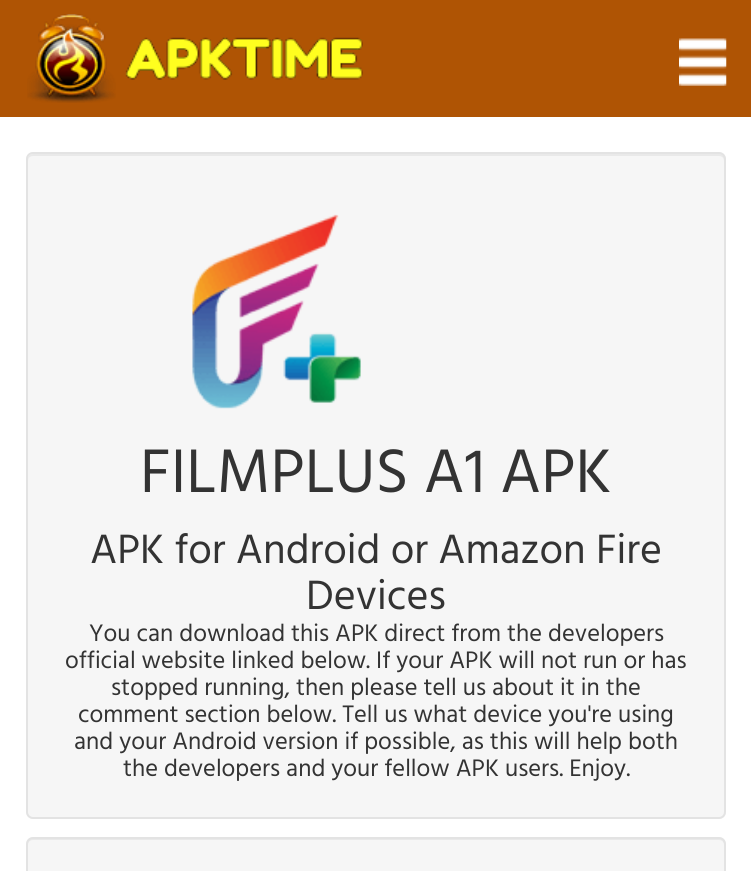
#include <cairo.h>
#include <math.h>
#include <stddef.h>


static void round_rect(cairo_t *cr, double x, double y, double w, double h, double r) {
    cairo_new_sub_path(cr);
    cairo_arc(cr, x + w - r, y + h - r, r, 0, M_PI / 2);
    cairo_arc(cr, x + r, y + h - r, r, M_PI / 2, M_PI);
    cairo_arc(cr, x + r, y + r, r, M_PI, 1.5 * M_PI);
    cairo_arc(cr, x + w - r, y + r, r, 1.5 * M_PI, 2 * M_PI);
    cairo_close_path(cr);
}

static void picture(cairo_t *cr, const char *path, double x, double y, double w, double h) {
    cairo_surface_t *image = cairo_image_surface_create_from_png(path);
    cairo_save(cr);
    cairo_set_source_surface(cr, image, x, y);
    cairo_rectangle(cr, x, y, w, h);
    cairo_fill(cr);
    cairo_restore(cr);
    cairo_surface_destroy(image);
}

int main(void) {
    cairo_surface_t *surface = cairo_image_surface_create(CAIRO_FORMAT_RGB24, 751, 871);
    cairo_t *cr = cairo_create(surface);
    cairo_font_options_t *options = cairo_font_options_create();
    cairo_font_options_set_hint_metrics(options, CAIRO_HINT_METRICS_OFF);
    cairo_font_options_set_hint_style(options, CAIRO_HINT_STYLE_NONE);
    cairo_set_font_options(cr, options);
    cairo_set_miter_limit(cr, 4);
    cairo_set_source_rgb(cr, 1, 1, 1);
    cairo_paint(cr);
    cairo_set_source_rgb(cr, 0.686, 0.329, 0.016);
    cairo_rectangle(cr, 0, 0, 751, 117);
    cairo_fill(cr);
    picture(cr, "img1.png", 27, 14, 336, 89);
    picture(cr, "img2.png", 679, 38, 48, 48);
    cairo_set_source_rgb(cr, 0.961, 0.961, 0.961);
    round_rect(cr, 26, 152, 700, 667, 7);
    cairo_fill(cr);
    cairo_set_source_rgb(cr, 0.914, 0.914, 0.914);
    cairo_new_path(cr);
    cairo_move_to(cr, 33, 156);
    cairo_line_to(cr, 719, 156);
    cairo_curve_to(cr, 722, 156, 724, 158, 724, 161);
    cairo_line_to(cr, 724, 815);
    cairo_curve_to(cr, 725, 814, 725, 813, 725, 812);
    cairo_line_to(cr, 725, 159);
    cairo_curve_to(cr, 725, 156, 723, 154, 720, 154);
    cairo_line_to(cr, 33, 154);
    cairo_curve_to(cr, 30, 154, 28, 156, 28, 159);
    cairo_line_to(cr, 28, 161);
    cairo_curve_to(cr, 28, 158, 30, 156, 33, 156);
    cairo_close_path(cr);
    cairo_fill(cr);
    round_rect(cr, 27, 153, 698, 665, 6);
    cairo_set_source_rgb(cr, 0.89, 0.89, 0.89);
    cairo_stroke(cr);
    picture(cr, "img3.png", 192, 214, 169, 195);
    cairo_select_font_face(cr, "Hind", CAIRO_FONT_SLANT_NORMAL, CAIRO_FONT_WEIGHT_NORMAL);
    cairo_set_font_size(cr, 63);
    cairo_set_source_rgb(cr, 0.2, 0.2, 0.2);
    cairo_move_to(cr, 140, 492);
    cairo_show_text(cr, "FILMPLUS A1 APK");
    cairo_set_font_size(cr, 42);
    cairo_move_to(cr, 90, 563);
    cairo_show_text(cr, "APK for Android or Amazon Fire");
    cairo_move_to(cr, 306, 609);
    cairo_show_text(cr, "Devices");
    cairo_set_font_size(cr, 24.5);
    cairo_move_to(cr, 89, 641);
    cairo_show_text(cr, "You can download this APK direct from the developers");
    cairo_move_to(cr, 65, 668);
    cairo_show_text(cr, "official website linked below. If your APK will not run or has");
    cairo_move_to(cr, 111, 695);
    cairo_show_text(cr, "stopped running, then please tell us about it in the");
    cairo_move_to(cr, 78, 722);
    cairo_show_text(cr, "comment section below. Tell us what device you're using");
    cairo_move_to(cr, 74, 749);
    cairo_show_text(cr, "and your Android version if possible, as this will help both");
    cairo_move_to(cr, 123, 776);
    cairo_show_text(cr, "the developers and your fellow APK users. Enjoy.");
    cairo_set_source_rgb(cr, 0.961, 0.961, 0.961);
    round_rect(cr, 26, 837, 700, 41, 7);
    cairo_fill(cr);
    cairo_set_source_rgb(cr, 0.914, 0.914, 0.914);
    cairo_new_path(cr);
    cairo_move_to(cr, 33, 840);
    cairo_line_to(cr, 719, 840);
    cairo_curve_to(cr, 722, 840, 724, 842, 724, 845);
    cairo_line_to(cr, 724, 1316);
    cairo_line_to(cr, 723, 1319);
    cairo_curve_to(cr, 724, 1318, 725, 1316, 725, 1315);
    cairo_line_to(cr, 725, 843);
    cairo_curve_to(cr, 725, 840, 723, 838, 720, 838);
    cairo_line_to(cr, 33, 838);
    cairo_curve_to(cr, 30, 838, 28, 840, 28, 843);
    cairo_line_to(cr, 28, 845);
    cairo_curve_to(cr, 28, 842, 30, 840, 33, 840);
    cairo_close_path(cr);
    cairo_fill(cr);
    round_rect(cr, 27, 838, 698, 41, 6);
    cairo_set_source_rgb(cr, 0.89, 0.89, 0.89);
    cairo_stroke(cr);
    cairo_surface_write_to_png(surface, "page.png");
    cairo_font_options_destroy(options);
    cairo_destroy(cr);
    cairo_surface_destroy(surface);
    return 0;
}
